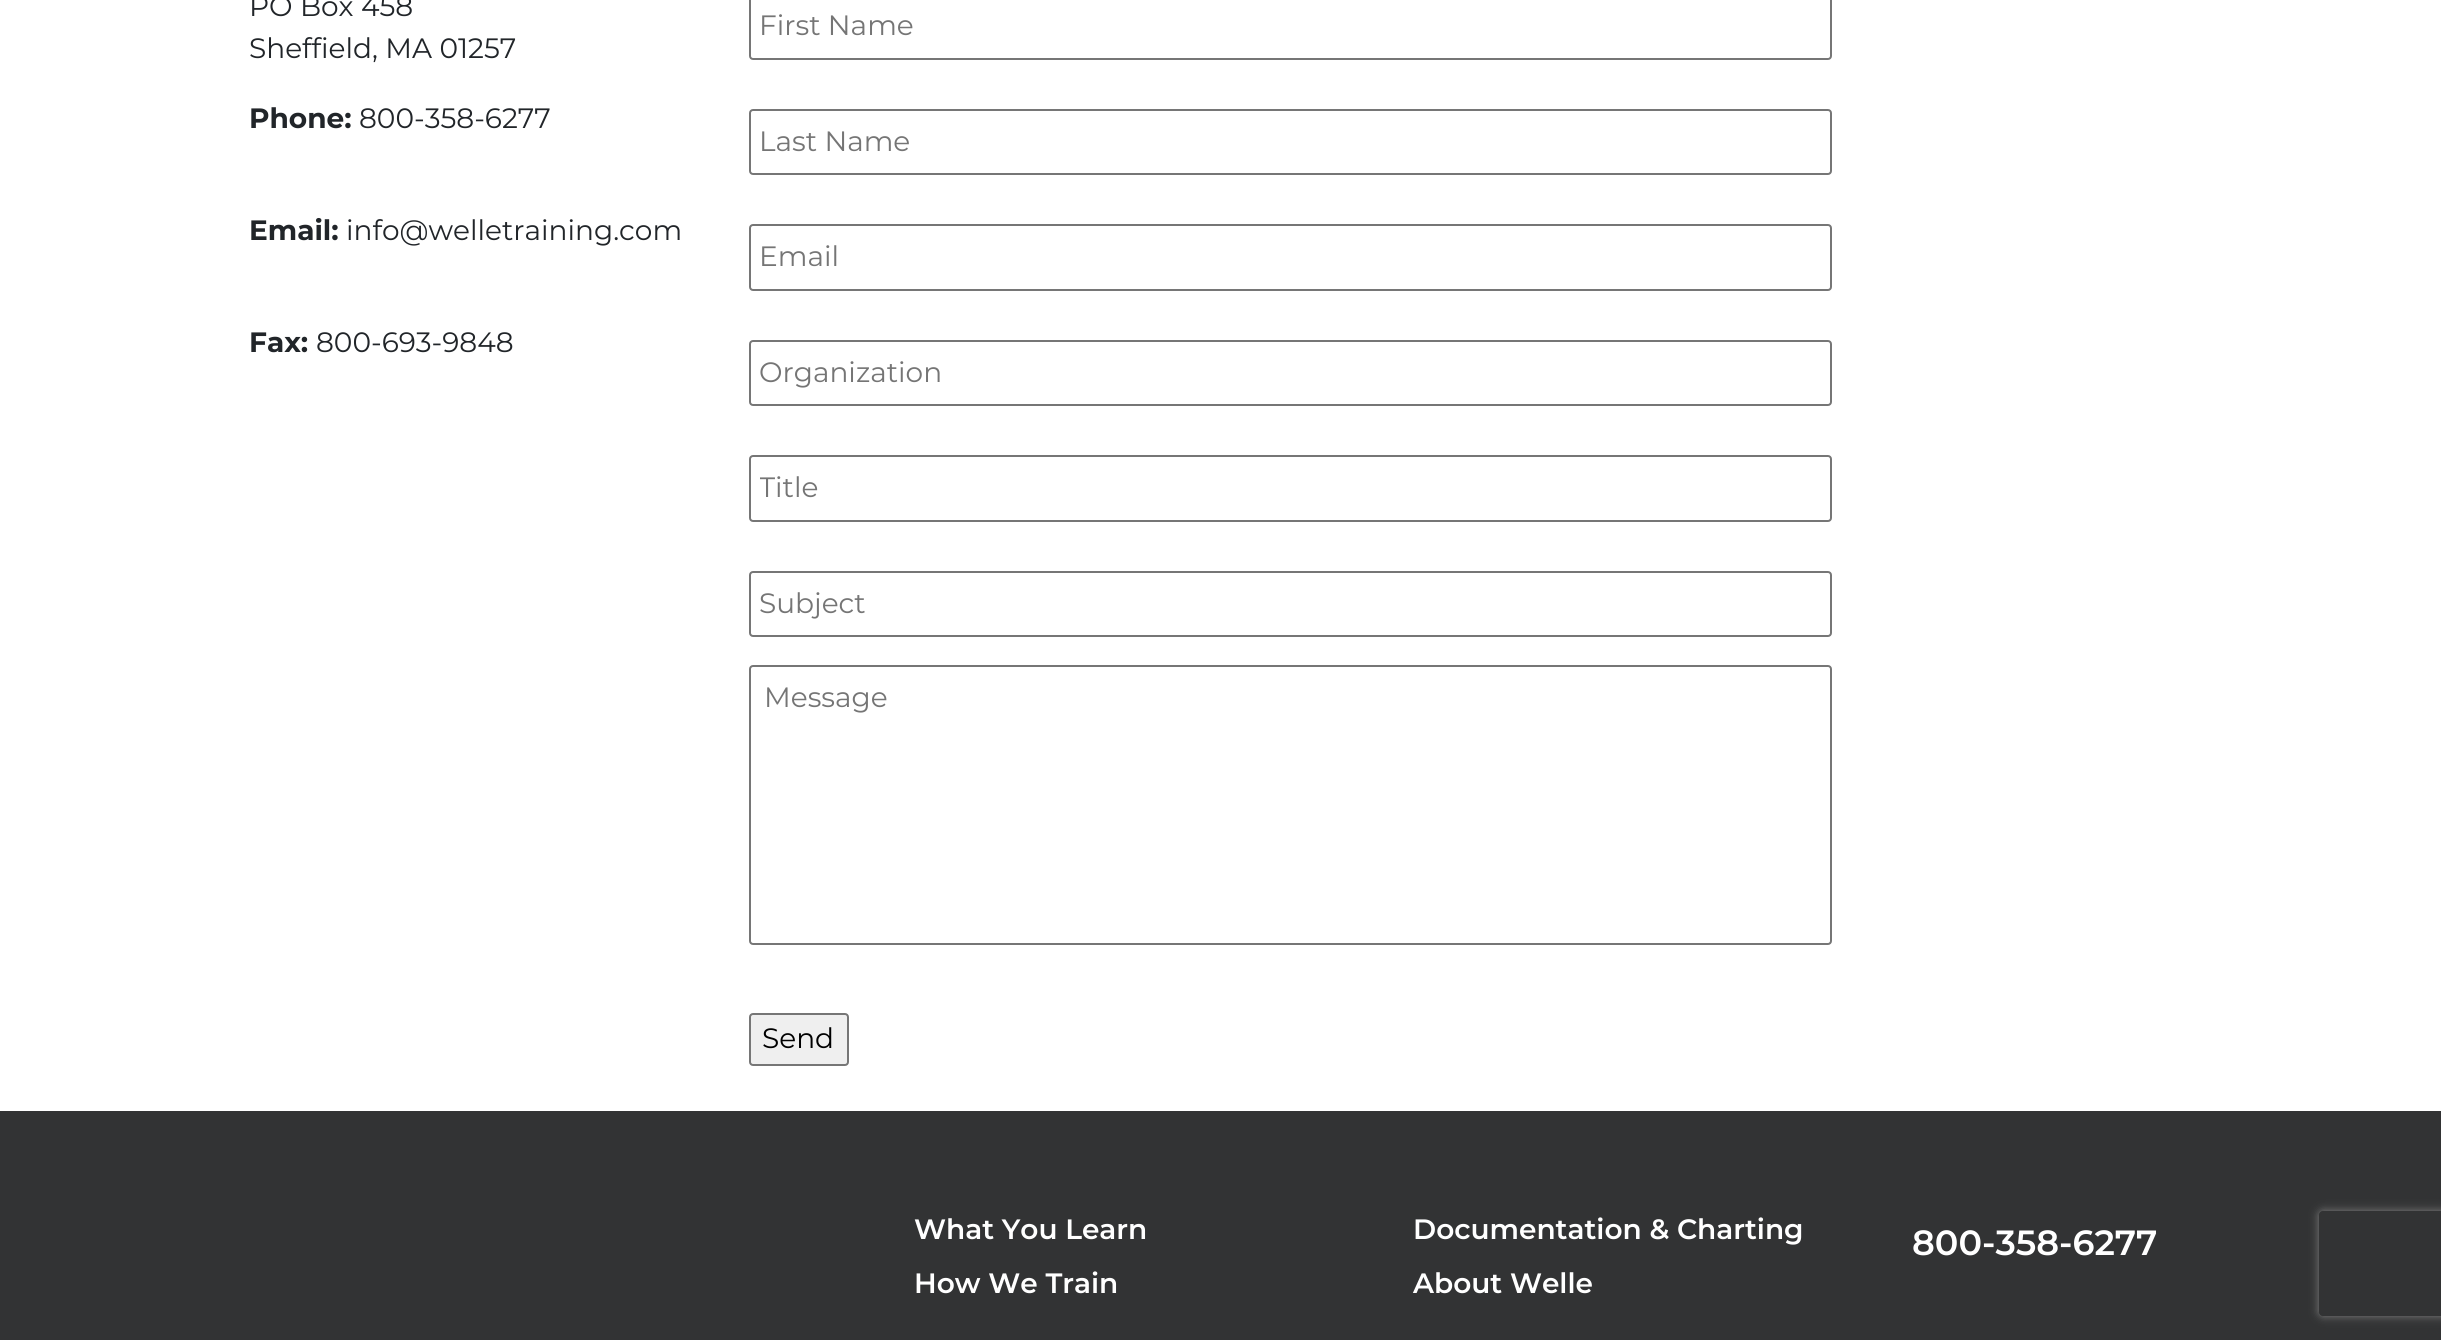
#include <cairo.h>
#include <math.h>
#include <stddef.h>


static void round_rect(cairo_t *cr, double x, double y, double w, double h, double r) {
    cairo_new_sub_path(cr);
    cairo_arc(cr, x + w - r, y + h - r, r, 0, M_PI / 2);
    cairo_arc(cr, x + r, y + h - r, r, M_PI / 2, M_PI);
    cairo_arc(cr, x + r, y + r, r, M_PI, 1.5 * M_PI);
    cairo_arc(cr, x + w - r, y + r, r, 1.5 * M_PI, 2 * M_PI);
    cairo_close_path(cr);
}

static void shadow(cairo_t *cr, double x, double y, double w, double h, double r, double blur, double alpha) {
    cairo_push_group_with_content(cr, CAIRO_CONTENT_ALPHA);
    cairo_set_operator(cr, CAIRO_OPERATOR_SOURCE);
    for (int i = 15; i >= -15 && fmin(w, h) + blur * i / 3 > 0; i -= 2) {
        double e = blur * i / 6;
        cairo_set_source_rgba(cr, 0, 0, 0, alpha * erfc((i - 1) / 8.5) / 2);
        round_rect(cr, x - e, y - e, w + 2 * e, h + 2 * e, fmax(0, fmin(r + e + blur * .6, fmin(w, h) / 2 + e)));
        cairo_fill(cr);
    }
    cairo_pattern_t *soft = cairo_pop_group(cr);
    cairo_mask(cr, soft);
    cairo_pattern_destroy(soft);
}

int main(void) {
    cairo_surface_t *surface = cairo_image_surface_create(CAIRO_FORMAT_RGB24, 2441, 1340);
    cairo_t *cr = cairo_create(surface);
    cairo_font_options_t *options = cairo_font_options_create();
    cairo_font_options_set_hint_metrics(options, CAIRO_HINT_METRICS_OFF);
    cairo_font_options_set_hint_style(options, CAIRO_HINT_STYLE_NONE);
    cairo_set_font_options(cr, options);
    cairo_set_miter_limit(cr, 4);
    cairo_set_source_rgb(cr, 1, 1, 1);
    cairo_paint(cr);
    cairo_select_font_face(cr, "Montserrat", CAIRO_FONT_SLANT_NORMAL, CAIRO_FONT_WEIGHT_NORMAL);
    cairo_set_font_size(cr, 28);
    cairo_set_source_rgb(cr, 0.129, 0.145, 0.161);
    cairo_move_to(cr, 249, 16);
    cairo_show_text(cr, "PO Box 458");
    cairo_move_to(cr, 249, 58);
    cairo_show_text(cr, "Sheffield, MA 01257");
    cairo_select_font_face(cr, "Montserrat", CAIRO_FONT_SLANT_NORMAL, CAIRO_FONT_WEIGHT_BOLD);
    cairo_move_to(cr, 249, 128);
    cairo_show_text(cr, "Phone:");
    cairo_select_font_face(cr, "Montserrat", CAIRO_FONT_SLANT_NORMAL, CAIRO_FONT_WEIGHT_NORMAL);
    cairo_move_to(cr, 359, 128);
    cairo_show_text(cr, "800-358-6277");
    cairo_select_font_face(cr, "Montserrat", CAIRO_FONT_SLANT_NORMAL, CAIRO_FONT_WEIGHT_BOLD);
    cairo_move_to(cr, 249, 240);
    cairo_show_text(cr, "Email:");
    cairo_select_font_face(cr, "Montserrat", CAIRO_FONT_SLANT_NORMAL, CAIRO_FONT_WEIGHT_NORMAL);
    cairo_move_to(cr, 346, 240);
    cairo_show_text(cr, "info@welletraining.com");
    cairo_select_font_face(cr, "Montserrat", CAIRO_FONT_SLANT_NORMAL, CAIRO_FONT_WEIGHT_BOLD);
    cairo_move_to(cr, 249, 352);
    cairo_show_text(cr, "Fax:");
    cairo_select_font_face(cr, "Montserrat", CAIRO_FONT_SLANT_NORMAL, CAIRO_FONT_WEIGHT_NORMAL);
    cairo_move_to(cr, 316, 352);
    cairo_show_text(cr, "800-693-9848");
    round_rect(cr, 750, -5, 1081, 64, 3);
    cairo_set_source_rgb(cr, 0.463, 0.463, 0.463);
    cairo_stroke(cr);
    cairo_set_source_rgb(cr, 0.459, 0.459, 0.459);
    cairo_move_to(cr, 759, 35);
    cairo_show_text(cr, "First Name");
    round_rect(cr, 750, 110, 1081, 64, 3);
    cairo_set_source_rgb(cr, 0.463, 0.463, 0.463);
    cairo_stroke(cr);
    cairo_set_source_rgb(cr, 0.459, 0.459, 0.459);
    cairo_move_to(cr, 759, 151);
    cairo_show_text(cr, "Last Name");
    round_rect(cr, 750, 225, 1081, 65, 3);
    cairo_set_source_rgb(cr, 0.463, 0.463, 0.463);
    cairo_stroke(cr);
    cairo_set_source_rgb(cr, 0.459, 0.459, 0.459);
    cairo_move_to(cr, 759, 266);
    cairo_show_text(cr, "Email");
    round_rect(cr, 750, 341, 1081, 64, 3);
    cairo_set_source_rgb(cr, 0.463, 0.463, 0.463);
    cairo_stroke(cr);
    cairo_set_source_rgb(cr, 0.459, 0.459, 0.459);
    cairo_move_to(cr, 759, 382);
    cairo_show_text(cr, "Organization");
    round_rect(cr, 750, 456, 1081, 65, 3);
    cairo_set_source_rgb(cr, 0.463, 0.463, 0.463);
    cairo_stroke(cr);
    cairo_save(cr);
    cairo_rectangle(cr, 760, 471, 1062, 33);
    cairo_clip(cr);
    cairo_set_source_rgb(cr, 0.459, 0.459, 0.459);
    cairo_move_to(cr, 759, 497);
    cairo_show_text(cr, "Title");
    cairo_restore(cr);
    round_rect(cr, 750, 572, 1081, 64, 3);
    cairo_stroke(cr);
    cairo_set_source_rgb(cr, 0.459, 0.459, 0.459);
    cairo_move_to(cr, 759, 613);
    cairo_show_text(cr, "Subject");
    round_rect(cr, 750, 666, 1081, 278, 3);
    cairo_set_source_rgb(cr, 0.463, 0.463, 0.463);
    cairo_stroke(cr);
    cairo_set_source_rgb(cr, 0.459, 0.459, 0.459);
    cairo_move_to(cr, 764, 707);
    cairo_show_text(cr, "Message");
    cairo_set_source_rgb(cr, 0.937, 0.937, 0.937);
    round_rect(cr, 750, 1014, 98, 51, 3);
    cairo_fill_preserve(cr);
    cairo_set_source_rgb(cr, 0.463, 0.463, 0.463);
    cairo_stroke(cr);
    cairo_set_source_rgb(cr, 0, 0, 0);
    cairo_move_to(cr, 762, 1048);
    cairo_show_text(cr, "Send");
    cairo_set_source_rgb(cr, 0.196, 0.2, 0.204);
    cairo_rectangle(cr, 0, 1111, 2441, 229);
    cairo_fill(cr);
    cairo_select_font_face(cr, "Montserrat SemiBold", CAIRO_FONT_SLANT_NORMAL, CAIRO_FONT_WEIGHT_NORMAL);
    cairo_set_source_rgb(cr, 1, 1, 1);
    cairo_move_to(cr, 914, 1239);
    cairo_show_text(cr, "What You Learn");
    cairo_move_to(cr, 914, 1293);
    cairo_show_text(cr, "How We Train");
    cairo_move_to(cr, 1413, 1239);
    cairo_show_text(cr, "Documentation & Charting");
    cairo_move_to(cr, 1413, 1293);
    cairo_show_text(cr, "About Welle");
    cairo_set_font_size(cr, 35);
    cairo_move_to(cr, 1912, 1255);
    cairo_show_text(cr, "800-358-6277");
    cairo_save(cr);
    cairo_set_fill_rule(cr, CAIRO_FILL_RULE_EVEN_ODD);
    cairo_new_path(cr);
    cairo_move_to(cr, 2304, 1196);
    cairo_line_to(cr, 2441, 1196);
    cairo_line_to(cr, 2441, 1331);
    cairo_line_to(cr, 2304, 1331);
    cairo_close_path(cr);
    cairo_move_to(cr, 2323, 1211);
    cairo_line_to(cr, 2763, 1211);
    cairo_curve_to(cr, 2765, 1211, 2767, 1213, 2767, 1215);
    cairo_line_to(cr, 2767, 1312);
    cairo_curve_to(cr, 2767, 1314, 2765, 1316, 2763, 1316);
    cairo_line_to(cr, 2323, 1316);
    cairo_curve_to(cr, 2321, 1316, 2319, 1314, 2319, 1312);
    cairo_line_to(cr, 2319, 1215);
    cairo_curve_to(cr, 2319, 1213, 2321, 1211, 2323, 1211);
    cairo_close_path(cr);
    cairo_clip(cr);
    cairo_set_source_rgb(cr, 0.502, 0.502, 0.502);
    shadow(cr, 2319, 1211, 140, 105, 4, 4.5, 1);
    cairo_restore(cr);
    cairo_surface_write_to_png(surface, "page.png");
    cairo_font_options_destroy(options);
    cairo_destroy(cr);
    cairo_surface_destroy(surface);
    return 0;
}
